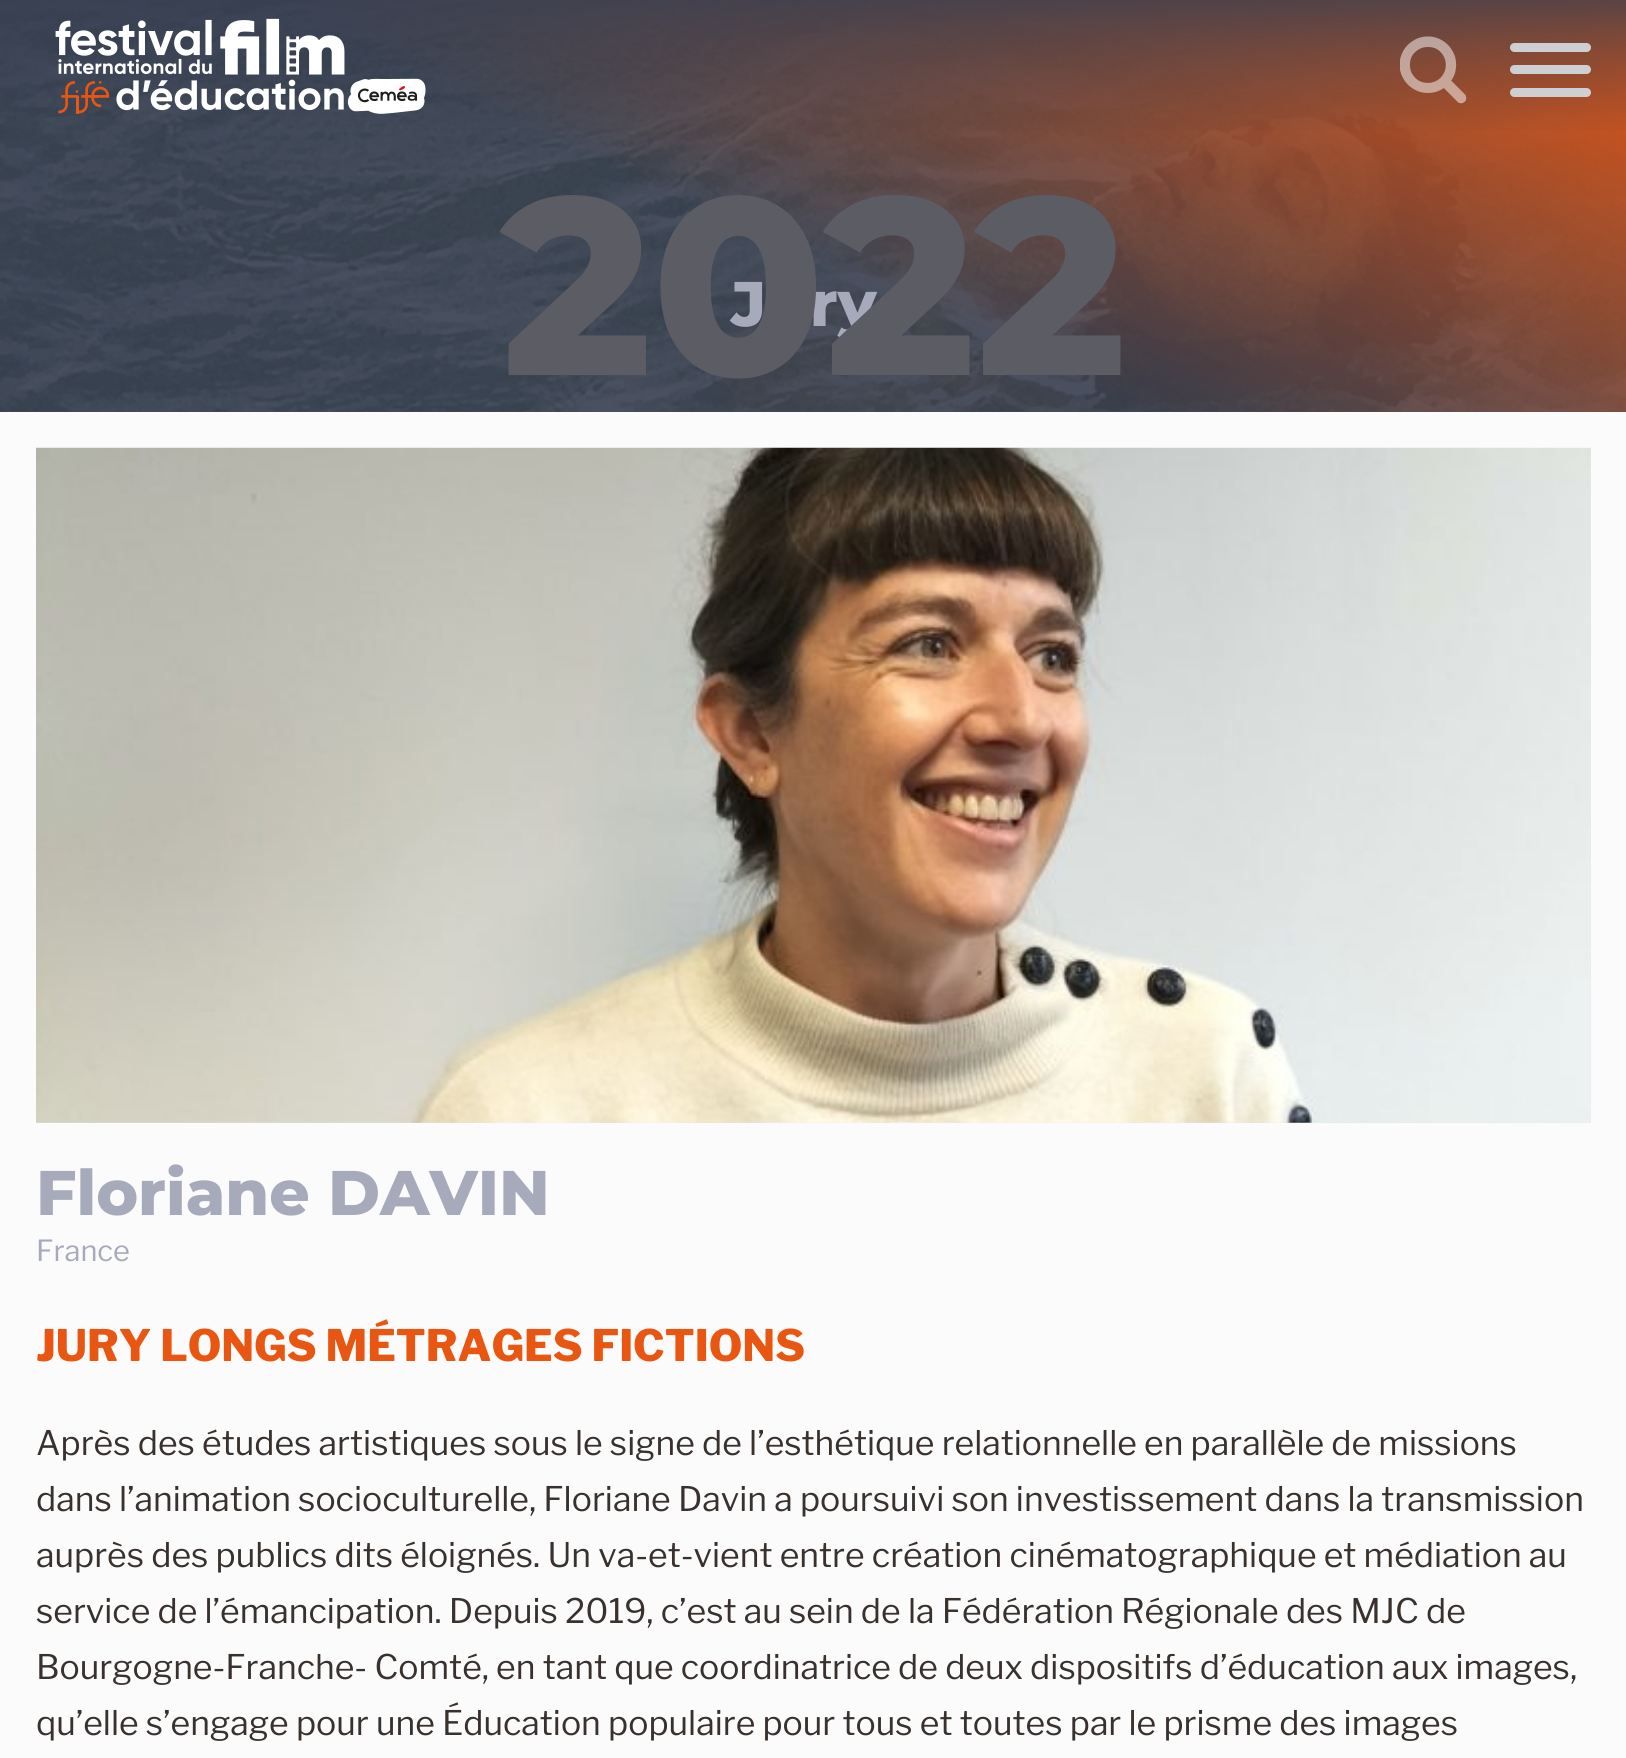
import math
import cairocffi as cairo

surface = cairo.ImageSurface(cairo.FORMAT_RGB24, 1626, 1758)
ctx = cairo.Context(surface)
options = cairo.FontOptions()
options.set_hint_metrics(cairo.HINT_METRICS_OFF)
options.set_hint_style(cairo.HINT_STYLE_NONE)
ctx.set_font_options(options)
ctx.set_miter_limit(4)


def rgb(r, g, b):
    ctx.set_source_rgb(r / 255, g / 255, b / 255)


def face(family, size, italic, bold):
    ctx.select_font_face(family, cairo.FONT_SLANT_ITALIC if italic else cairo.FONT_SLANT_NORMAL, cairo.FONT_WEIGHT_BOLD if bold else cairo.FONT_WEIGHT_NORMAL)
    ctx.set_font_size(size)


def label(x, y, s):
    ctx.move_to(x, y)
    ctx.show_text(s)


def rect(x, y, w, h):
    ctx.rectangle(x, y, w, h)
    ctx.fill()


def rrect(x, y, w, h, r):
    ctx.new_sub_path()
    for i, (u, v) in enumerate([(x + w - r, y + h - r), (x + r, y + h - r), (x + r, y + r), (x + w - r, y + r)]):
        ctx.arc(u, v, r, i * math.pi / 2, (i + 1) * math.pi / 2)
    ctx.close_path()


def image(path, x, y, w, h):
    ctx.save()
    ctx.set_source_surface(cairo.ImageSurface.create_from_png(path), x, y)
    ctx.rectangle(x, y, w, h)
    ctx.fill()
    ctx.restore()


rgb(251, 251, 251)
ctx.paint()
image('image2.png', 0, 0, 1626, 412)
gradient = cairo.LinearGradient(589, 687, 1038, -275)
gradient.add_color_stop_rgba(0.45, 0.216, 0.247, 0.318, 0.9)
gradient.add_color_stop_rgba(1, 0.91, 0.333, 0.067, 1)
ctx.set_source(gradient)
rect(0, 0, 1626, 412)
gradient = cairo.LinearGradient(813, 0, 813, 135)
gradient.add_color_stop_rgba(0, 0.216, 0.247, 0.318, 0.8)
gradient.add_color_stop_rgba(1, 0.216, 0.247, 0.318, 0)
ctx.set_source(gradient)
rect(0, 0, 1626, 131)
image('image0.png', 55, 18, 371, 96)
image('image1.png', 1400, 36, 67, 68)
rgb(205, 207, 211)
rrect(1510, 43, 81, 9, 4.5)
ctx.fill()
rrect(1510, 65, 81, 9, 4.5)
ctx.fill()
rrect(1510, 88, 81, 9, 4.5)
ctx.fill()
face('Montserrat ExtraBold', 63, 0, 0)
rgb(167, 170, 187)
label(731, 326, 'Jury')
face('Montserrat ExtraBold', 252, 0, 0)
rgb(92, 92, 101)
label(501, 375, '2022')
rgb(227, 230, 237)
rect(36, 448, 1555, 675)
image('image3.png', 36, 447, 1555, 676)
face('Montserrat ExtraBold', 63, 0, 0)
rgb(167, 170, 187)
label(36, 1215, 'Floriane DAVIN')
face('Libre Franklin', 29, 0, 0)
label(36, 1261, 'France')
face('Libre Franklin ExtraBold', 43.25, 0, 0)
rgb(232, 86, 17)
label(36, 1361, 'JURY LONGS MÉTRAGES FICTIONS')
face('Libre Franklin', 33.75, 0, 0)
rgb(56, 49, 46)
label(36, 1455, 'Après des études artistiques sous le signe de l’esthétique relationnelle en parallèle de missions')
label(36, 1511, 'dans l’animation socioculturelle, Floriane Davin a poursuivi son investissement dans la transmission')
label(36, 1567, 'auprès des publics dits éloignés. Un va-et-vient entre création cinématographique et médiation au')
label(36, 1623, 'service de l’émancipation. Depuis 2019, c’est au sein de la Fédération Régionale des MJC de')
label(36, 1679, 'Bourgogne-Franche- Comté, en tant que coordinatrice de deux dispositifs d’éducation aux images,')
label(36, 1735, 'qu’elle s’engage pour une Éducation populaire pour tous et toutes par le prisme des images')
surface.write_to_png('render.png')
